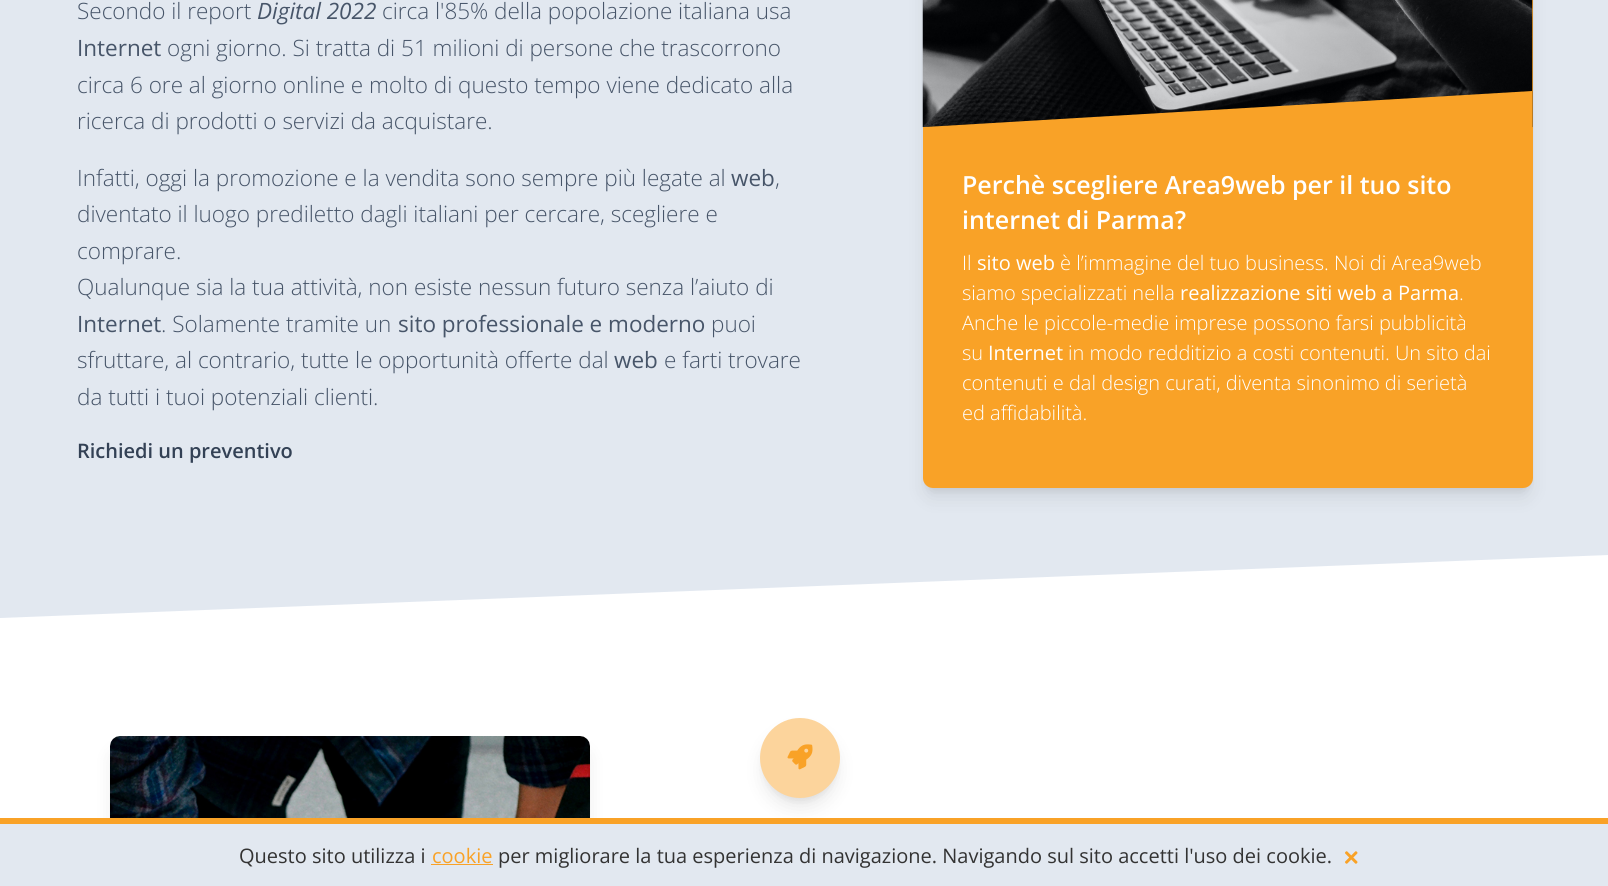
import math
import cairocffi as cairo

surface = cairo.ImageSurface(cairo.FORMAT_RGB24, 1608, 886)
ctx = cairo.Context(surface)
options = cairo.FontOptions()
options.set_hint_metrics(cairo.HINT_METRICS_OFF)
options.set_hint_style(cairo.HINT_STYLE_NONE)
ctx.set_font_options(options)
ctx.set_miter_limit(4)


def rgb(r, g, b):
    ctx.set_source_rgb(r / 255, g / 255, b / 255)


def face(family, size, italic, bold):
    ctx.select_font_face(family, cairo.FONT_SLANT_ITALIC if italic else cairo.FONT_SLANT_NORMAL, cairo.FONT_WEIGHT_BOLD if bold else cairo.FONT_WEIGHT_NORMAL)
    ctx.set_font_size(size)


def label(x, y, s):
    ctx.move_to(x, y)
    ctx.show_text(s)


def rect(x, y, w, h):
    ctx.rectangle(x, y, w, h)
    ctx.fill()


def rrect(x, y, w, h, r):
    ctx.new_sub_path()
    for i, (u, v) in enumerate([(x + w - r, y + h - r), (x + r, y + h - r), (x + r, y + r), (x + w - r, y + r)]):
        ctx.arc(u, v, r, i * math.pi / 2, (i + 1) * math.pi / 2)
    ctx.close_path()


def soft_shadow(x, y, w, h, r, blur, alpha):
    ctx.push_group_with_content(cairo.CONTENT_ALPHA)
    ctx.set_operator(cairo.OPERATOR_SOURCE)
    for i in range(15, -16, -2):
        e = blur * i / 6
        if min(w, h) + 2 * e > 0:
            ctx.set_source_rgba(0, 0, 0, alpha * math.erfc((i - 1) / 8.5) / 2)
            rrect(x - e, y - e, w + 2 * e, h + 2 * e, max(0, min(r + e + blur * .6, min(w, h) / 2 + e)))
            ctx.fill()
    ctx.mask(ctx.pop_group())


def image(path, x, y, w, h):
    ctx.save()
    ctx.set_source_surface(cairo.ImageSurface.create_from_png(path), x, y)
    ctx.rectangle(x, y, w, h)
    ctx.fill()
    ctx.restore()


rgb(255, 255, 255)
ctx.paint()
rgb(226, 232, 240)
rect(0, 0, 1608, 618)
face('Open Sans Light', 22.5, 0, 0)
rgb(71, 85, 105)
label(77, 19, 'Secondo il report')
face('Open Sans', 22.5, 1, 0)
label(257, 19, 'Digital 2022')
face('Open Sans Light', 22.5, 0, 0)
label(382, 19, 'circa l\'85% della popolazione italiana usa')
face('Open Sans', 22.5, 0, 0)
label(77, 56, 'Internet')
face('Open Sans Light', 22.5, 0, 0)
label(167, 56, 'ogni giorno. Si tratta di 51 milioni di persone che trascorrono')
label(77, 93, 'circa 6 ore al giorno online e molto di questo tempo viene dedicato alla')
label(77, 129, 'ricerca di prodotti o servizi da acquistare.')
label(77, 186, 'Infatti, oggi la promozione e la vendita sono sempre più legate al')
face('Open Sans', 22.5, 0, 0)
label(731, 186, 'web')
face('Open Sans Light', 22.5, 0, 0)
label(775, 186, ',')
label(77, 222, 'diventato il luogo prediletto dagli italiani per cercare, scegliere e')
label(77, 259, 'comprare.')
label(77, 295, 'Qualunque sia la tua attività, non esiste nessun futuro senza l’aiuto di')
face('Open Sans', 22.5, 0, 0)
label(77, 332, 'Internet')
face('Open Sans Light', 22.5, 0, 0)
label(161, 332, '. Solamente tramite un')
face('Open Sans', 22.5, 0, 0)
label(398, 332, 'sito professionale e moderno')
face('Open Sans Light', 22.5, 0, 0)
label(711, 332, 'puoi')
label(77, 368, 'sfruttare, al contrario, tutte le opportunità offerte dal')
face('Open Sans', 22.5, 0, 0)
label(614, 368, 'web')
face('Open Sans Light', 22.5, 0, 0)
label(664, 368, 'e farti trovare')
label(77, 405, 'da tutti i tuoi potenziali clienti.')
face('Open Sans SemiBold', 20, 0, 0)
rgb(51, 65, 85)
label(77, 458, 'Richiedi un preventivo')
rgb(0, 0, 0)
soft_shadow(928, -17, 600, 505, 5, 4, 0.1)
soft_shadow(926, -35, 603, 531, 6, 9.5, 0.1)
rgb(249, 162, 39)
rrect(923, -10, 610, 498, 10)
ctx.fill()
image('image0.png', 922, 0, 611, 128)
ctx.save()
ctx.rectangle(923, 10, 610, 119)
ctx.clip()
ctx.new_path()
ctx.move_to(891, 129)
ctx.line_to(1532, 129)
ctx.line_to(1532, 91)
ctx.close_path()
ctx.fill()
ctx.restore()
face('Open Sans SemiBold', 25, 0, 0)
rgb(255, 255, 255)
label(962, 194, 'Perchè scegliere Area9web per il tuo sito')
label(962, 229, 'internet di Parma?')
face('Open Sans Light', 20, 0, 0)
label(962, 270, 'Il')
face('Open Sans', 20, 0, 0)
label(977, 270, 'sito web')
face('Open Sans Light', 20, 0, 0)
label(1060, 270, 'è l’immagine del tuo business. Noi di Area9web')
label(962, 300, 'siamo specializzati nella')
face('Open Sans', 20, 0, 0)
label(1180, 300, 'realizzazione siti web a Parma')
face('Open Sans Light', 20, 0, 0)
label(1459, 300, '.')
label(962, 330, 'Anche le piccole-medie imprese possono farsi pubblicità')
label(962, 360, 'su')
face('Open Sans', 20, 0, 0)
label(988, 360, 'Internet')
face('Open Sans Light', 20, 0, 0)
label(1068, 360, 'in modo redditizio a costi contenuti. Un sito dai')
label(962, 390, 'contenuti e dal design curati, diventa sinonimo di serietà')
label(962, 420, 'ed affidabilità.')
ctx.new_path()
ctx.move_to(1608, 555)
ctx.line_to(1608, 618)
ctx.line_to(0, 618)
ctx.close_path()
ctx.fill()
rgb(0, 0, 0)
soft_shadow(114, 753, 472, 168, 6, 9.5, 0.1)
image('image1.png', 110, 736, 480, 82)
soft_shadow(765, 728, 70, 70, 35, 4, 0.1)
soft_shadow(764, 734, 72, 72, 36, 9.5, 0.1)
rgb(252, 212, 156)
ctx.arc(800, 758, 40, 0, 2 * math.pi)
ctx.fill()
image('image2.png', 787, 744, 26, 26)
rgb(226, 232, 240)
rect(0, 824, 1608, 62)
rgb(249, 162, 39)
rect(0, 818, 1608, 6)
face('Open Sans', 20, 0, 0)
rgb(51, 51, 51)
label(239, 863, 'Questo sito utilizza i')
rgb(249, 162, 39)
label(432, 863, 'cookie')
rect(431, 864, 62, 1)
rgb(51, 51, 51)
label(498, 863, 'per migliorare la tua esperienza di navigazione. Navigando sul sito accetti l\'uso dei cookie.')
image('image3.png', 1345, 851, 13, 13)
surface.write_to_png('render.png')
